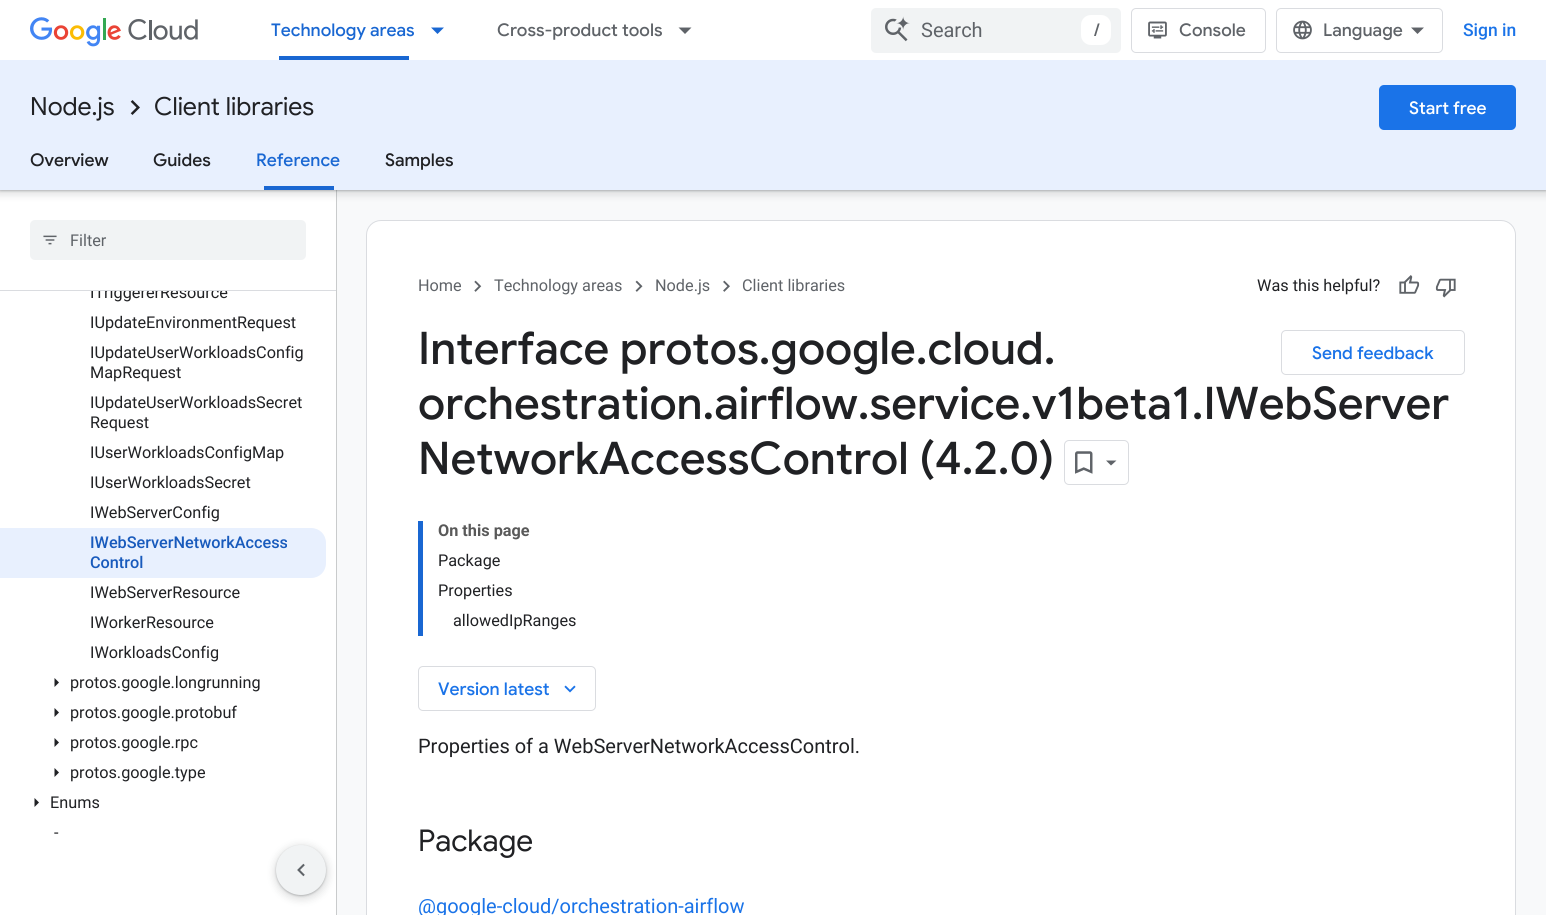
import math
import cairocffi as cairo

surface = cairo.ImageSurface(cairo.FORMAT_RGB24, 1546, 915)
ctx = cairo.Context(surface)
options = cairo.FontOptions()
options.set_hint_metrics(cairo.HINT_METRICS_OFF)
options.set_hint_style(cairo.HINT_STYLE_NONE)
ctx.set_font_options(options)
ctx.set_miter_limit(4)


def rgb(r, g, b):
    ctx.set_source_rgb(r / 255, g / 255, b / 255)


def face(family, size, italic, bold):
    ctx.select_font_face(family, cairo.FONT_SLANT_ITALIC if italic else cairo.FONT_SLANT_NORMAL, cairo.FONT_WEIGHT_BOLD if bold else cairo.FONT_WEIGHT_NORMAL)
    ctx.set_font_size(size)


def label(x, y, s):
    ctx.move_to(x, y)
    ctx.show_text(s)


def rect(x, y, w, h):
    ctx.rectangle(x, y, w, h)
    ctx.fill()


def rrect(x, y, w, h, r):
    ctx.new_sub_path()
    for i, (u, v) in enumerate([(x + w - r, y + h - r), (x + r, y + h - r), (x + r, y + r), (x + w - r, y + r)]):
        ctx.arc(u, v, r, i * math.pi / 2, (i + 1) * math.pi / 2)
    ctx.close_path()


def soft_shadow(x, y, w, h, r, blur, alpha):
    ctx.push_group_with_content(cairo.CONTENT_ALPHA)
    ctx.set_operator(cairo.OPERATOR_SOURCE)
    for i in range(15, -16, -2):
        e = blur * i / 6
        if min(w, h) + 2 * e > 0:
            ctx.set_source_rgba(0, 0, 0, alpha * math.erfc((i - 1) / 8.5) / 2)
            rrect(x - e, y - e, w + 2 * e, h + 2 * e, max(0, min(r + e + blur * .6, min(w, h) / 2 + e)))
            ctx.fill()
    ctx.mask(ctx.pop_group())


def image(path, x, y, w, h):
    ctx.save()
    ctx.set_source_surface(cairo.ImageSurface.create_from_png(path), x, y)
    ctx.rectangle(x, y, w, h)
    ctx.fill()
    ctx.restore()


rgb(248, 249, 250)
ctx.paint()
rgb(60, 64, 67)
soft_shadow(0, 1, 336, 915, 0, 0.5, 1)
rgb(255, 255, 255)
rect(0, 291, 336, 624)
face('Roboto', 16.25, 0, 0)
rgb(32, 33, 36)
label(90, 298, 'ITriggererResource')
rgb(255, 255, 255)
rect(0, 190, 336, 100)
rgb(60, 64, 67)
soft_shadow(-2, 60, 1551, 135, 0, 4, 0.15)
soft_shadow(0, 61, 1546, 130, 0, 1, 0.3)
rgb(255, 255, 255)
rect(0, 0, 1546, 60)
image('image0.png', 30, 17, 168, 30)
face('Google Sans Medium', 17.5, 0, 0)
rgb(25, 103, 210)
label(271, 36, 'Technology areas')
rect(279, 56, 130, 4)
ctx.new_path()
ctx.move_to(431, 27.5)
ctx.line_to(444, 27.5)
ctx.line_to(437.5, 34)
ctx.close_path()
ctx.fill()
rgb(95, 99, 104)
label(497, 36, 'Cross-product tools')
ctx.new_path()
ctx.move_to(678.5, 27.5)
ctx.line_to(691.5, 27.5)
ctx.line_to(685, 34)
ctx.close_path()
ctx.fill()
rgb(241, 243, 244)
rrect(871, 8, 250, 45, 5)
ctx.fill()
image('image1.png', 885, 16, 25, 26)
face('Roboto', 20, 0, 0)
rgb(95, 99, 104)
label(921, 37, 'Search')
rgb(255, 255, 255)
rrect(1081, 15, 30, 30, 10)
ctx.fill()
face('Google Sans Medium', 17.5, 0, 0)
rgb(95, 99, 104)
label(1094, 36, '/')
rrect(1131.5, 8.5, 134, 44, 4.5)
rgb(218, 220, 224)
ctx.set_line_width(1)
ctx.stroke()
image('image2.png', 1148, 21, 19, 18)
rgb(95, 99, 104)
label(1179, 36, 'Console')
rrect(1276.5, 8.5, 166, 44, 4.5)
rgb(218, 220, 224)
ctx.stroke()
image('image3.png', 1293, 20, 19, 20)
rgb(95, 99, 104)
label(1323, 36, 'Language')
ctx.new_path()
ctx.move_to(1417.5, 34)
ctx.line_to(1411, 27.5)
ctx.line_to(1424, 27.5)
ctx.close_path()
ctx.fill()
face('Roboto Medium', 17.5, 0, 0)
rgb(26, 115, 232)
label(1463, 36, 'Sign in')
rgb(232, 240, 254)
rect(0, 60, 1546, 130)
face('Google Sans', 25, 0, 0)
rgb(32, 33, 36)
label(30, 115, 'Node.js')
image('image4.png', 130, 100, 10, 15)
label(154, 115, 'Client libraries')
rgb(26, 115, 232)
rrect(1379, 85, 137, 45, 5)
ctx.fill()
face('Google Sans Medium', 17.5, 0, 0)
rgb(255, 255, 255)
label(1409, 114, 'Start free')
rgb(32, 33, 36)
label(30, 166, 'Overview')
label(153, 166, 'Guides')
rgb(25, 103, 210)
label(256, 166, 'Reference')
rect(264, 186, 70, 4)
rgb(32, 33, 36)
label(385, 166, 'Samples')
rgb(218, 220, 224)
rect(0, 290, 336, 1)
rgb(241, 243, 244)
rrect(30, 220, 276, 40, 5)
ctx.fill()
image('image5.png', 43, 235, 14, 10)
face('Roboto', 16.25, 0, 0)
rgb(95, 99, 104)
label(70, 246, 'Filter')
rgb(32, 33, 36)
label(90, 328, 'IUpdateEnvironmentRequest')
label(90, 358, 'IUpdateUserWorkloadsConfig')
label(90, 378, 'MapRequest')
label(90, 408, 'IUpdateUserWorkloadsSecret')
label(90, 428, 'Request')
label(90, 458, 'IUserWorkloadsConfigMap')
label(90, 488, 'IUserWorkloadsSecret')
label(90, 518, 'IWebServerConfig')
rgb(232, 240, 254)
ctx.new_path()
ctx.move_to(0, 528)
ctx.line_to(311, 528)
ctx.curve_to(319.5, 528, 326, 534.5, 326, 543)
ctx.line_to(326, 563)
ctx.curve_to(326, 571.5, 319.5, 578, 311, 578)
ctx.line_to(0, 578)
ctx.close_path()
ctx.fill()
face('Roboto Medium', 16.25, 0, 0)
rgb(24, 90, 188)
label(90, 548, 'IWebServerNetworkAccess')
label(90, 568, 'Control')
face('Roboto', 16.25, 0, 0)
rgb(32, 33, 36)
label(90, 598, 'IWebServerResource')
label(90, 628, 'IWorkerResource')
label(90, 658, 'IWorkloadsConfig')
ctx.new_path()
ctx.move_to(54.5, 687)
ctx.line_to(54.5, 678)
ctx.line_to(59, 682.5)
ctx.close_path()
ctx.fill()
label(70, 688, 'protos.google.longrunning')
ctx.new_path()
ctx.move_to(54.5, 717)
ctx.line_to(54.5, 708)
ctx.line_to(59, 712.5)
ctx.close_path()
ctx.fill()
label(70, 718, 'protos.google.protobuf')
ctx.new_path()
ctx.move_to(54.5, 747)
ctx.line_to(54.5, 738)
ctx.line_to(59, 742.5)
ctx.close_path()
ctx.fill()
label(70, 748, 'protos.google.rpc')
ctx.new_path()
ctx.move_to(54.5, 777)
ctx.line_to(54.5, 768)
ctx.line_to(59, 772.5)
ctx.close_path()
ctx.fill()
label(70, 778, 'protos.google.type')
ctx.new_path()
ctx.move_to(34.5, 807)
ctx.line_to(34.5, 798)
ctx.line_to(39, 802.5)
ctx.close_path()
ctx.fill()
label(50, 808, 'Enums')
label(54, 838, '-')
rgb(255, 255, 255)
rrect(366.5, 220.5, 1149, 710, 14.5)
ctx.fill_preserve()
rgb(218, 220, 224)
ctx.stroke()
rgb(95, 99, 104)
label(418, 291, 'Home')
image('image6.png', 474, 280, 8, 12)
label(494, 291, 'Technology areas')
image('image7.png', 635, 280, 8, 12)
label(655, 291, 'Node.js')
image('image8.png', 723, 280, 7, 12)
label(742, 291, 'Client libraries')
rgb(32, 33, 36)
label(1257, 291, 'Was this helpful?')
image('image9.png', 1399, 275, 21, 19)
image('image10.png', 1435, 278, 21, 20)
face('Google Sans Medium', 45, 0, 0)
label(418, 364, 'Interface protos.google.cloud.')
label(418, 419, 'orchestration.airflow.service.v1beta1.IWebServer')
label(418, 474, 'NetworkAccessControl (4.2.0)')
rrect(1064.5, 440.5, 64, 44, 4.5)
rgb(218, 220, 224)
ctx.stroke()
image('image11.png', 1075, 451, 18, 23)
rgb(95, 99, 104)
ctx.new_path()
ctx.move_to(1106, 460.5)
ctx.line_to(1116.5, 460.5)
ctx.line_to(1111, 465.5)
ctx.close_path()
ctx.fill()
rrect(1281.5, 330.5, 183, 44, 4.5)
rgb(218, 220, 224)
ctx.stroke()
face('Google Sans Medium', 17.5, 0, 0)
rgb(26, 115, 232)
label(1312, 359, 'Send feedback')
rgb(25, 103, 210)
rect(418, 521, 5, 115)
face('Roboto', 16.25, 0, 1)
rgb(89, 89, 89)
label(438, 536, 'On this page')
face('Roboto', 16.25, 0, 0)
rgb(32, 33, 36)
label(438, 566, 'Package')
label(438, 596, 'Properties')
label(453, 626, 'allowedIpRanges')
rrect(418.5, 666.5, 177, 44, 4.5)
rgb(218, 220, 224)
ctx.stroke()
face('Google Sans Medium', 17.5, 0, 0)
rgb(26, 115, 232)
label(438, 695, 'Version latest')
image('image12.png', 564, 685, 12, 8)
face('Roboto', 20, 0, 0)
rgb(32, 33, 36)
label(418, 753, 'Properties of a WebServerNetworkAccessControl.')
face('Google Sans', 30, 0, 0)
label(418, 851, 'Package')
face('Roboto', 20, 0, 0)
rgb(26, 115, 232)
label(418, 913, '@google-cloud/orchestration-airflow')
rgb(60, 64, 67)
soft_shadow(274, 845, 55, 55, 27.5, 4, 0.15)
soft_shadow(276, 846, 50, 50, 25, 1, 0.3)
rgb(241, 243, 244)
ctx.arc(301, 870, 25, 0, 2 * math.pi)
ctx.fill()
image('image13.png', 297, 863, 8, 14)
surface.write_to_png('render.png')
